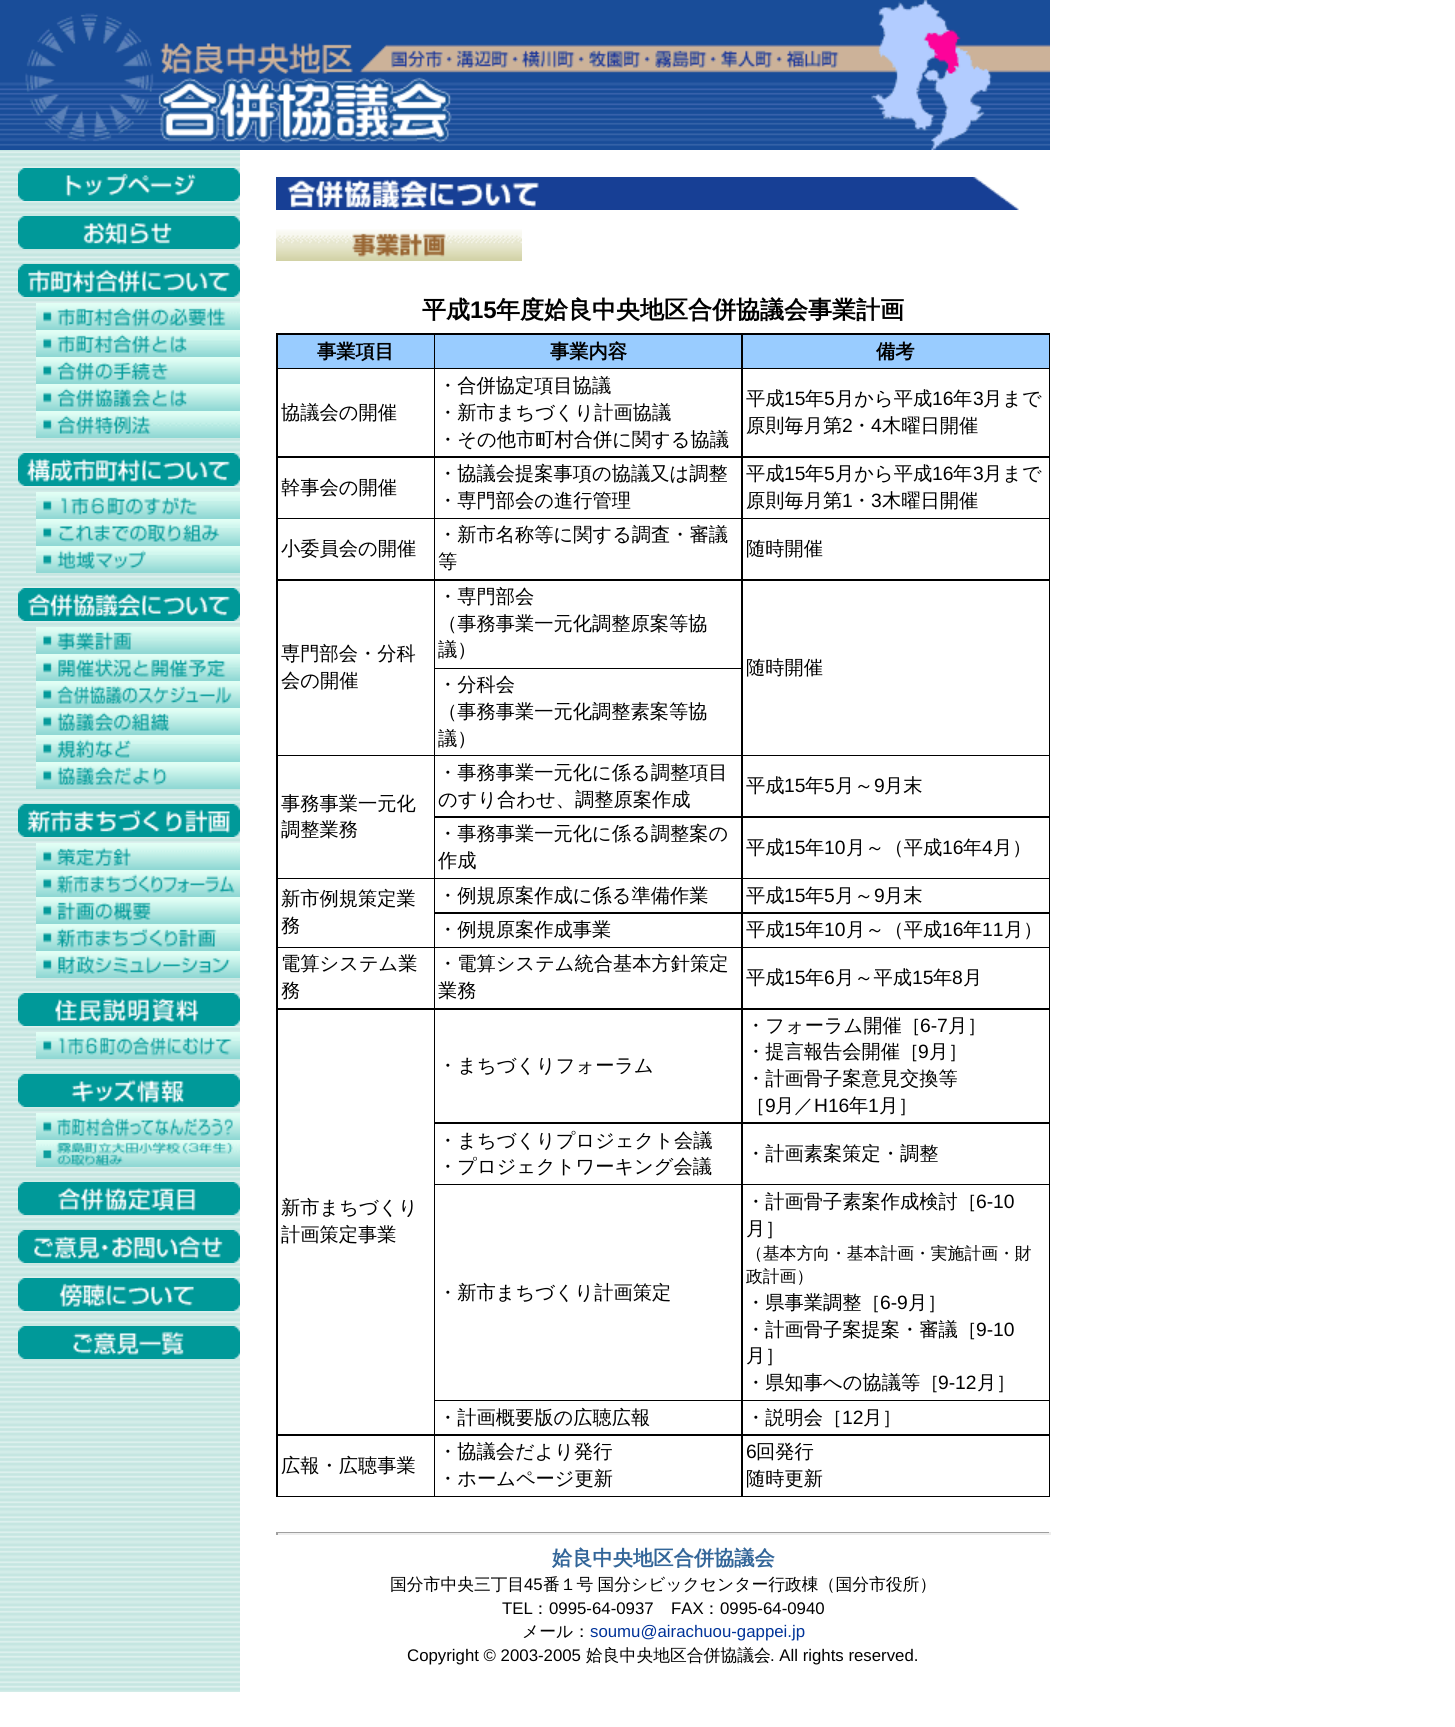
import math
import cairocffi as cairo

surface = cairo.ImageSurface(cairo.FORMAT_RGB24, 1455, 1727)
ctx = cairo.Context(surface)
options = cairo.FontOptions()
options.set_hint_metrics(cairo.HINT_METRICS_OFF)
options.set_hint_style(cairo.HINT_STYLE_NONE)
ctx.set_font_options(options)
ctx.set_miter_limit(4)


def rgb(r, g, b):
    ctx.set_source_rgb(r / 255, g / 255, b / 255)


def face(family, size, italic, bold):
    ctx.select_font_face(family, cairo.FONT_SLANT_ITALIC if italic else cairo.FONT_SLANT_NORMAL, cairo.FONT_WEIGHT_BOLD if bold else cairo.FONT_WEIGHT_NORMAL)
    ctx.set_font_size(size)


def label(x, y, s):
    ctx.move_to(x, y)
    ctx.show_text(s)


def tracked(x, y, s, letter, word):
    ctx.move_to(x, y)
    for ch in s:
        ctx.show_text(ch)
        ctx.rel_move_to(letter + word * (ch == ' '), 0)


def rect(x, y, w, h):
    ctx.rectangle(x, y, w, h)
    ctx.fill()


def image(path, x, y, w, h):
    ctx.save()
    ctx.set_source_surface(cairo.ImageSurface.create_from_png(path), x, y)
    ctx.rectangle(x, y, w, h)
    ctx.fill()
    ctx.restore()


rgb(255, 255, 255)
ctx.paint()
image('image0.png', 0, 0, 1050, 150)
image('image1.png', 0, 150, 240, 1542)
image('image2.png', 18, 168, 222, 33)
image('image3.png', 18, 216, 222, 33)
image('image4.png', 18, 264, 222, 33)
image('image5.png', 36, 303, 204, 27)
image('image6.png', 36, 330, 204, 27)
image('image7.png', 36, 357, 204, 27)
image('image8.png', 36, 384, 204, 27)
image('image9.png', 36, 411, 204, 27)
image('image10.png', 18, 453, 222, 33)
image('image11.png', 36, 492, 204, 27)
image('image12.png', 36, 519, 204, 27)
image('image13.png', 36, 546, 204, 27)
image('image14.png', 18, 588, 222, 33)
image('image15.png', 36, 627, 204, 27)
image('image16.png', 36, 654, 204, 27)
image('image17.png', 36, 681, 204, 27)
image('image18.png', 36, 708, 204, 27)
image('image19.png', 36, 735, 204, 27)
image('image20.png', 36, 762, 204, 27)
image('image21.png', 18, 804, 222, 33)
image('image22.png', 36, 843, 204, 27)
image('image23.png', 36, 870, 204, 27)
image('image24.png', 36, 897, 204, 27)
image('image25.png', 36, 924, 204, 27)
image('image26.png', 36, 951, 204, 27)
image('image27.png', 18, 993, 222, 33)
image('image28.png', 36, 1032, 204, 27)
image('image29.png', 18, 1074, 222, 33)
image('image30.png', 36, 1113, 204, 27)
image('image31.png', 36, 1140, 204, 27)
image('image32.png', 18, 1182, 222, 33)
image('image33.png', 18, 1230, 222, 33)
image('image34.png', 18, 1278, 222, 33)
image('image35.png', 18, 1326, 222, 33)
image('image36.png', 276, 177, 743, 33)
image('image37.png', 276, 229, 246, 32)
face('WenQuanYi Zen Hei', 24, 0, 1)
rgb(0, 0, 0)
label(422, 318, '平成')
face('Liberation Sans', 24, 0, 1)
label(470, 318, '15')
face('WenQuanYi Zen Hei', 24, 0, 1)
label(496, 318, '年度姶良中央地区合併協議会事業計画')
rect(276, 333, 774, 1164)
rgb(153, 204, 255)
rect(278, 335, 156, 33)
face('WenQuanYi Zen Hei', 19.25, 0, 1)
rgb(0, 0, 0)
label(317, 358, '事業項目')
rgb(153, 204, 255)
rect(435, 335, 306, 33)
rgb(0, 0, 0)
label(550, 358, '事業内容')
rgb(153, 204, 255)
rect(743, 335, 306, 33)
rgb(0, 0, 0)
label(876, 358, '備考')
rgb(255, 255, 255)
rect(278, 369, 156, 87)
face('WenQuanYi Zen Hei Medium', 19.25, 0, 0)
rgb(0, 0, 0)
label(281, 419, '協議会の開催')
rgb(255, 255, 255)
rect(435, 369, 306, 87)
rgb(0, 0, 0)
label(438, 392, '・合併協定項目協議')
label(438, 419, '・新市まちづくり計画協議')
label(438, 446, '・その他市町村合併に関する協議')
rgb(255, 255, 255)
rect(743, 369, 306, 87)
rgb(0, 0, 0)
label(746, 405, '平成')
face('Liberation Sans', 19.25, 0, 0)
label(784, 405, '15')
face('WenQuanYi Zen Hei Medium', 19.25, 0, 0)
label(805, 405, '年')
face('Liberation Sans', 19.25, 0, 0)
label(824, 405, '5')
face('WenQuanYi Zen Hei Medium', 19.25, 0, 0)
label(835, 405, '月から平成')
face('Liberation Sans', 19.25, 0, 0)
label(932, 405, '16')
face('WenQuanYi Zen Hei Medium', 19.25, 0, 0)
label(953, 405, '年')
face('Liberation Sans', 19.25, 0, 0)
label(973, 405, '3')
face('WenQuanYi Zen Hei Medium', 19.25, 0, 0)
label(983, 405, '月まで')
label(746, 432, '原則毎月第')
face('Liberation Sans', 19.25, 0, 0)
label(842, 432, '2')
face('WenQuanYi Zen Hei Medium', 19.25, 0, 0)
label(852, 432, '・')
face('Liberation Sans', 19.25, 0, 0)
label(871, 432, '4')
face('WenQuanYi Zen Hei Medium', 19.25, 0, 0)
label(882, 432, '木曜日開催')
rgb(255, 255, 255)
rect(278, 458, 156, 60)
rgb(0, 0, 0)
label(281, 494, '幹事会の開催')
rgb(255, 255, 255)
rect(435, 458, 306, 60)
rgb(0, 0, 0)
label(438, 480, '・協議会提案事項の協議又は調整')
label(438, 507, '・専門部会の進行管理')
rgb(255, 255, 255)
rect(743, 458, 306, 60)
rgb(0, 0, 0)
label(746, 480, '平成')
face('Liberation Sans', 19.25, 0, 0)
label(784, 480, '15')
face('WenQuanYi Zen Hei Medium', 19.25, 0, 0)
label(805, 480, '年')
face('Liberation Sans', 19.25, 0, 0)
label(824, 480, '5')
face('WenQuanYi Zen Hei Medium', 19.25, 0, 0)
label(835, 480, '月から平成')
face('Liberation Sans', 19.25, 0, 0)
label(932, 480, '16')
face('WenQuanYi Zen Hei Medium', 19.25, 0, 0)
label(953, 480, '年')
face('Liberation Sans', 19.25, 0, 0)
label(973, 480, '3')
face('WenQuanYi Zen Hei Medium', 19.25, 0, 0)
label(983, 480, '月まで')
label(746, 507, '原則毎月第')
face('Liberation Sans', 19.25, 0, 0)
label(842, 507, '1')
face('WenQuanYi Zen Hei Medium', 19.25, 0, 0)
label(852, 507, '・')
face('Liberation Sans', 19.25, 0, 0)
label(871, 507, '3')
face('WenQuanYi Zen Hei Medium', 19.25, 0, 0)
label(882, 507, '木曜日開催')
rgb(255, 255, 255)
rect(278, 519, 156, 60)
rgb(0, 0, 0)
label(281, 555, '小委員会の開催')
rgb(255, 255, 255)
rect(435, 519, 306, 60)
rgb(0, 0, 0)
label(438, 541, '・新市名称等に関する調査・審議')
label(438, 568, '等')
rgb(255, 255, 255)
rect(743, 519, 306, 60)
rgb(0, 0, 0)
label(746, 555, '随時開催')
rgb(255, 255, 255)
rect(435, 581, 306, 87)
rgb(0, 0, 0)
label(438, 603, '・専門部会')
label(438, 630, '（事務事業一元化調整原案等協')
label(438, 656, '議）')
rgb(255, 255, 255)
rect(278, 581, 156, 174)
rgb(0, 0, 0)
label(281, 660, '専門部会・分科')
label(281, 687, '会の開催')
rgb(255, 255, 255)
rect(743, 581, 306, 174)
rgb(0, 0, 0)
label(746, 674, '随時開催')
rgb(255, 255, 255)
rect(435, 669, 306, 86)
rgb(0, 0, 0)
label(438, 691, '・分科会')
label(438, 718, '（事務事業一元化調整素案等協')
label(438, 745, '議）')
rgb(255, 255, 255)
rect(435, 756, 306, 60)
rgb(0, 0, 0)
label(438, 779, '・事務事業一元化に係る調整項目')
label(438, 806, 'のすり合わせ、調整原案作成')
rgb(255, 255, 255)
rect(743, 756, 306, 60)
rgb(0, 0, 0)
label(746, 792, '平成')
face('Liberation Sans', 19.25, 0, 0)
label(784, 792, '15')
face('WenQuanYi Zen Hei Medium', 19.25, 0, 0)
label(805, 792, '年')
face('Liberation Sans', 19.25, 0, 0)
label(824, 792, '5')
face('WenQuanYi Zen Hei Medium', 19.25, 0, 0)
label(835, 792, '月～')
face('Liberation Sans', 19.25, 0, 0)
label(874, 792, '9')
face('WenQuanYi Zen Hei Medium', 19.25, 0, 0)
label(884, 792, '月末')
rgb(255, 255, 255)
rect(278, 756, 156, 122)
rgb(0, 0, 0)
label(281, 810, '事務事業一元化')
label(281, 836, '調整業務')
rgb(255, 255, 255)
rect(435, 818, 306, 60)
rgb(0, 0, 0)
label(438, 840, '・事務事業一元化に係る調整案の')
label(438, 867, '作成')
rgb(255, 255, 255)
rect(743, 818, 306, 60)
rgb(0, 0, 0)
label(746, 854, '平成')
face('Liberation Sans', 19.25, 0, 0)
label(784, 854, '15')
face('WenQuanYi Zen Hei Medium', 19.25, 0, 0)
label(805, 854, '年')
face('Liberation Sans', 19.25, 0, 0)
label(824, 854, '10')
face('WenQuanYi Zen Hei Medium', 19.25, 0, 0)
label(846, 854, '月～（平成')
face('Liberation Sans', 19.25, 0, 0)
label(942, 854, '16')
face('WenQuanYi Zen Hei Medium', 19.25, 0, 0)
label(963, 854, '年')
face('Liberation Sans', 19.25, 0, 0)
label(982, 854, '4')
face('WenQuanYi Zen Hei Medium', 19.25, 0, 0)
label(993, 854, '月）')
rgb(255, 255, 255)
rect(278, 879, 156, 68)
rgb(0, 0, 0)
label(281, 905, '新市例規策定業')
label(281, 932, '務')
rgb(255, 255, 255)
rect(435, 879, 306, 33)
rgb(0, 0, 0)
label(438, 902, '・例規原案作成に係る準備作業')
rgb(255, 255, 255)
rect(743, 879, 306, 33)
rgb(0, 0, 0)
label(746, 902, '平成')
face('Liberation Sans', 19.25, 0, 0)
label(784, 902, '15')
face('WenQuanYi Zen Hei Medium', 19.25, 0, 0)
label(805, 902, '年')
face('Liberation Sans', 19.25, 0, 0)
label(824, 902, '5')
face('WenQuanYi Zen Hei Medium', 19.25, 0, 0)
label(835, 902, '月～')
face('Liberation Sans', 19.25, 0, 0)
label(874, 902, '9')
face('WenQuanYi Zen Hei Medium', 19.25, 0, 0)
label(884, 902, '月末')
rgb(255, 255, 255)
rect(435, 914, 306, 33)
rgb(0, 0, 0)
label(438, 936, '・例規原案作成事業')
rgb(255, 255, 255)
rect(743, 914, 306, 33)
rgb(0, 0, 0)
label(746, 936, '平成')
face('Liberation Sans', 19.25, 0, 0)
label(784, 936, '15')
face('WenQuanYi Zen Hei Medium', 19.25, 0, 0)
label(805, 936, '年')
face('Liberation Sans', 19.25, 0, 0)
label(824, 936, '10')
face('WenQuanYi Zen Hei Medium', 19.25, 0, 0)
label(846, 936, '月～（平成')
face('Liberation Sans', 19.25, 0, 0)
label(942, 936, '16')
face('WenQuanYi Zen Hei Medium', 19.25, 0, 0)
label(963, 936, '年')
face('Liberation Sans', 19.25, 0, 0)
label(982, 936, '11')
face('WenQuanYi Zen Hei Medium', 19.25, 0, 0)
label(1004, 936, '月）')
rgb(255, 255, 255)
rect(278, 948, 156, 60)
rgb(0, 0, 0)
label(281, 970, '電算システム業')
label(281, 997, '務')
rgb(255, 255, 255)
rect(435, 948, 306, 60)
rgb(0, 0, 0)
label(438, 970, '・電算システム統合基本方針策定')
label(438, 997, '業務')
rgb(255, 255, 255)
rect(743, 948, 306, 60)
rgb(0, 0, 0)
label(746, 984, '平成')
face('Liberation Sans', 19.25, 0, 0)
label(784, 984, '15')
face('WenQuanYi Zen Hei Medium', 19.25, 0, 0)
label(805, 984, '年')
face('Liberation Sans', 19.25, 0, 0)
label(824, 984, '6')
face('WenQuanYi Zen Hei Medium', 19.25, 0, 0)
label(835, 984, '月～平成')
face('Liberation Sans', 19.25, 0, 0)
label(912, 984, '15')
face('WenQuanYi Zen Hei Medium', 19.25, 0, 0)
label(933, 984, '年')
face('Liberation Sans', 19.25, 0, 0)
label(952, 984, '8')
face('WenQuanYi Zen Hei Medium', 19.25, 0, 0)
label(963, 984, '月')
rgb(255, 255, 255)
rect(435, 1010, 306, 112)
rgb(0, 0, 0)
label(438, 1072, '・まちづくりフォーラム')
rgb(255, 255, 255)
rect(743, 1010, 306, 112)
rgb(0, 0, 0)
label(746, 1032, '・フォーラム開催［')
face('Liberation Sans', 19.25, 0, 0)
label(920, 1032, '6-7')
face('WenQuanYi Zen Hei Medium', 19.25, 0, 0)
label(948, 1032, '月］')
label(746, 1058, '・提言報告会開催［')
face('Liberation Sans', 19.25, 0, 0)
label(918, 1058, '9')
face('WenQuanYi Zen Hei Medium', 19.25, 0, 0)
label(929, 1058, '月］')
label(746, 1085, '・計画骨子案意見交換等')
label(746, 1112, '［')
face('Liberation Sans', 19.25, 0, 0)
label(765, 1112, '9')
face('WenQuanYi Zen Hei Medium', 19.25, 0, 0)
label(775, 1112, '月／')
face('Liberation Sans', 19.25, 0, 0)
label(814, 1112, 'H16')
face('WenQuanYi Zen Hei Medium', 19.25, 0, 0)
label(849, 1112, '年')
face('Liberation Sans', 19.25, 0, 0)
label(868, 1112, '1')
face('WenQuanYi Zen Hei Medium', 19.25, 0, 0)
label(879, 1112, '月］')
rgb(255, 255, 255)
rect(278, 1010, 156, 424)
rgb(0, 0, 0)
label(281, 1214, '新市まちづくり')
label(281, 1241, '計画策定事業')
rgb(255, 255, 255)
rect(435, 1124, 306, 60)
rgb(0, 0, 0)
label(438, 1147, '・まちづくりプロジェクト会議')
label(438, 1173, '・プロジェクトワーキング会議')
rgb(255, 255, 255)
rect(743, 1124, 306, 60)
rgb(0, 0, 0)
label(746, 1160, '・計画素案策定・調整')
rgb(255, 255, 255)
rect(435, 1185, 306, 215)
rgb(0, 0, 0)
label(438, 1299, '・新市まちづくり計画策定')
rgb(255, 255, 255)
rect(743, 1185, 306, 215)
rgb(0, 0, 0)
label(746, 1208, '・計画骨子素案作成検討［')
face('Liberation Sans', 19.25, 0, 0)
label(976, 1208, '6-10')
face('WenQuanYi Zen Hei Medium', 19.25, 0, 0)
label(746, 1235, '月］')
face('WenQuanYi Zen Hei Medium', 16.8, 0, 0)
label(746, 1259, '（基本方向・基本計画・実施計画・財')
label(746, 1282, '政計画）')
face('WenQuanYi Zen Hei Medium', 19.25, 0, 0)
label(746, 1309, '・県事業調整［')
face('Liberation Sans', 19.25, 0, 0)
label(880, 1309, '6-9')
face('WenQuanYi Zen Hei Medium', 19.25, 0, 0)
label(908, 1309, '月］')
label(746, 1336, '・計画骨子案提案・審議［')
face('Liberation Sans', 19.25, 0, 0)
label(976, 1336, '9-10')
face('WenQuanYi Zen Hei Medium', 19.25, 0, 0)
label(746, 1362, '月］')
label(746, 1389, '・県知事への協議等［')
face('Liberation Sans', 19.25, 0, 0)
label(938, 1389, '9-12')
face('WenQuanYi Zen Hei Medium', 19.25, 0, 0)
label(977, 1389, '月］')
rgb(255, 255, 255)
rect(435, 1401, 306, 33)
rgb(0, 0, 0)
label(438, 1424, '・計画概要版の広聴広報')
rgb(255, 255, 255)
rect(743, 1401, 306, 33)
rgb(0, 0, 0)
label(746, 1424, '・説明会［')
face('Liberation Sans', 19.25, 0, 0)
label(842, 1424, '12')
face('WenQuanYi Zen Hei Medium', 19.25, 0, 0)
label(863, 1424, '月］')
rgb(255, 255, 255)
rect(278, 1436, 156, 60)
rgb(0, 0, 0)
label(281, 1472, '広報・広聴事業')
rgb(255, 255, 255)
rect(435, 1436, 306, 60)
rgb(0, 0, 0)
label(438, 1458, '・協議会だより発行')
label(438, 1485, '・ホームページ更新')
rgb(255, 255, 255)
rect(743, 1436, 306, 60)
face('Liberation Sans', 19.25, 0, 0)
rgb(0, 0, 0)
label(746, 1458, '6')
face('WenQuanYi Zen Hei Medium', 19.25, 0, 0)
label(756, 1458, '回発行')
label(746, 1485, '随時更新')
rgb(159, 159, 159)
rect(276, 1532, 774, 1)
rgb(238, 238, 238)
rect(1049, 1532, 2, 3)
rect(276, 1533, 774, 2)
rgb(159, 159, 159)
rect(276, 1532, 2, 3)
face('WenQuanYi Zen Hei', 20.25, 0, 1)
rgb(51, 102, 153)
label(552, 1565, '姶良中央地区合併協議会')
face('WenQuanYi Zen Hei Medium', 16.8, 0, 0)
rgb(0, 0, 0)
label(390, 1590, '国分市中央三丁目')
face('Liberation Sans', 16.8, 0, 0)
label(524, 1590, '45')
face('WenQuanYi Zen Hei Medium', 16.8, 0, 0)
tracked(543, 1590, '番１号 国分シビックセンター行政棟（国分市役所）', 0, -1)
face('Liberation Sans', 16.8, 0, 0)
label(502, 1614, 'TEL')
face('WenQuanYi Zen Hei Medium', 16.8, 0, 0)
label(532, 1614, '：')
face('Liberation Sans', 16.8, 0, 0)
label(549, 1614, '0995-64-0937')
label(671, 1614, 'FAX')
face('WenQuanYi Zen Hei Medium', 16.8, 0, 0)
label(703, 1614, '：')
face('Liberation Sans', 16.8, 0, 0)
label(720, 1614, '0995-64-0940')
face('WenQuanYi Zen Hei Medium', 16.8, 0, 0)
label(522, 1637, 'メール：')
face('Liberation Sans', 16.8, 0, 0)
rgb(0, 51, 153)
label(590, 1637, 'soumu@airachuou-gappei.jp')
rgb(0, 0, 0)
label(407, 1661, 'Copyright © 2003-2005')
face('WenQuanYi Zen Hei Medium', 16.8, 0, 0)
label(586, 1661, '姶良中央地区合併協議会')
face('Liberation Sans', 16.8, 0, 0)
label(770, 1661, '. All rights reserved.')
surface.write_to_png('render.png')
